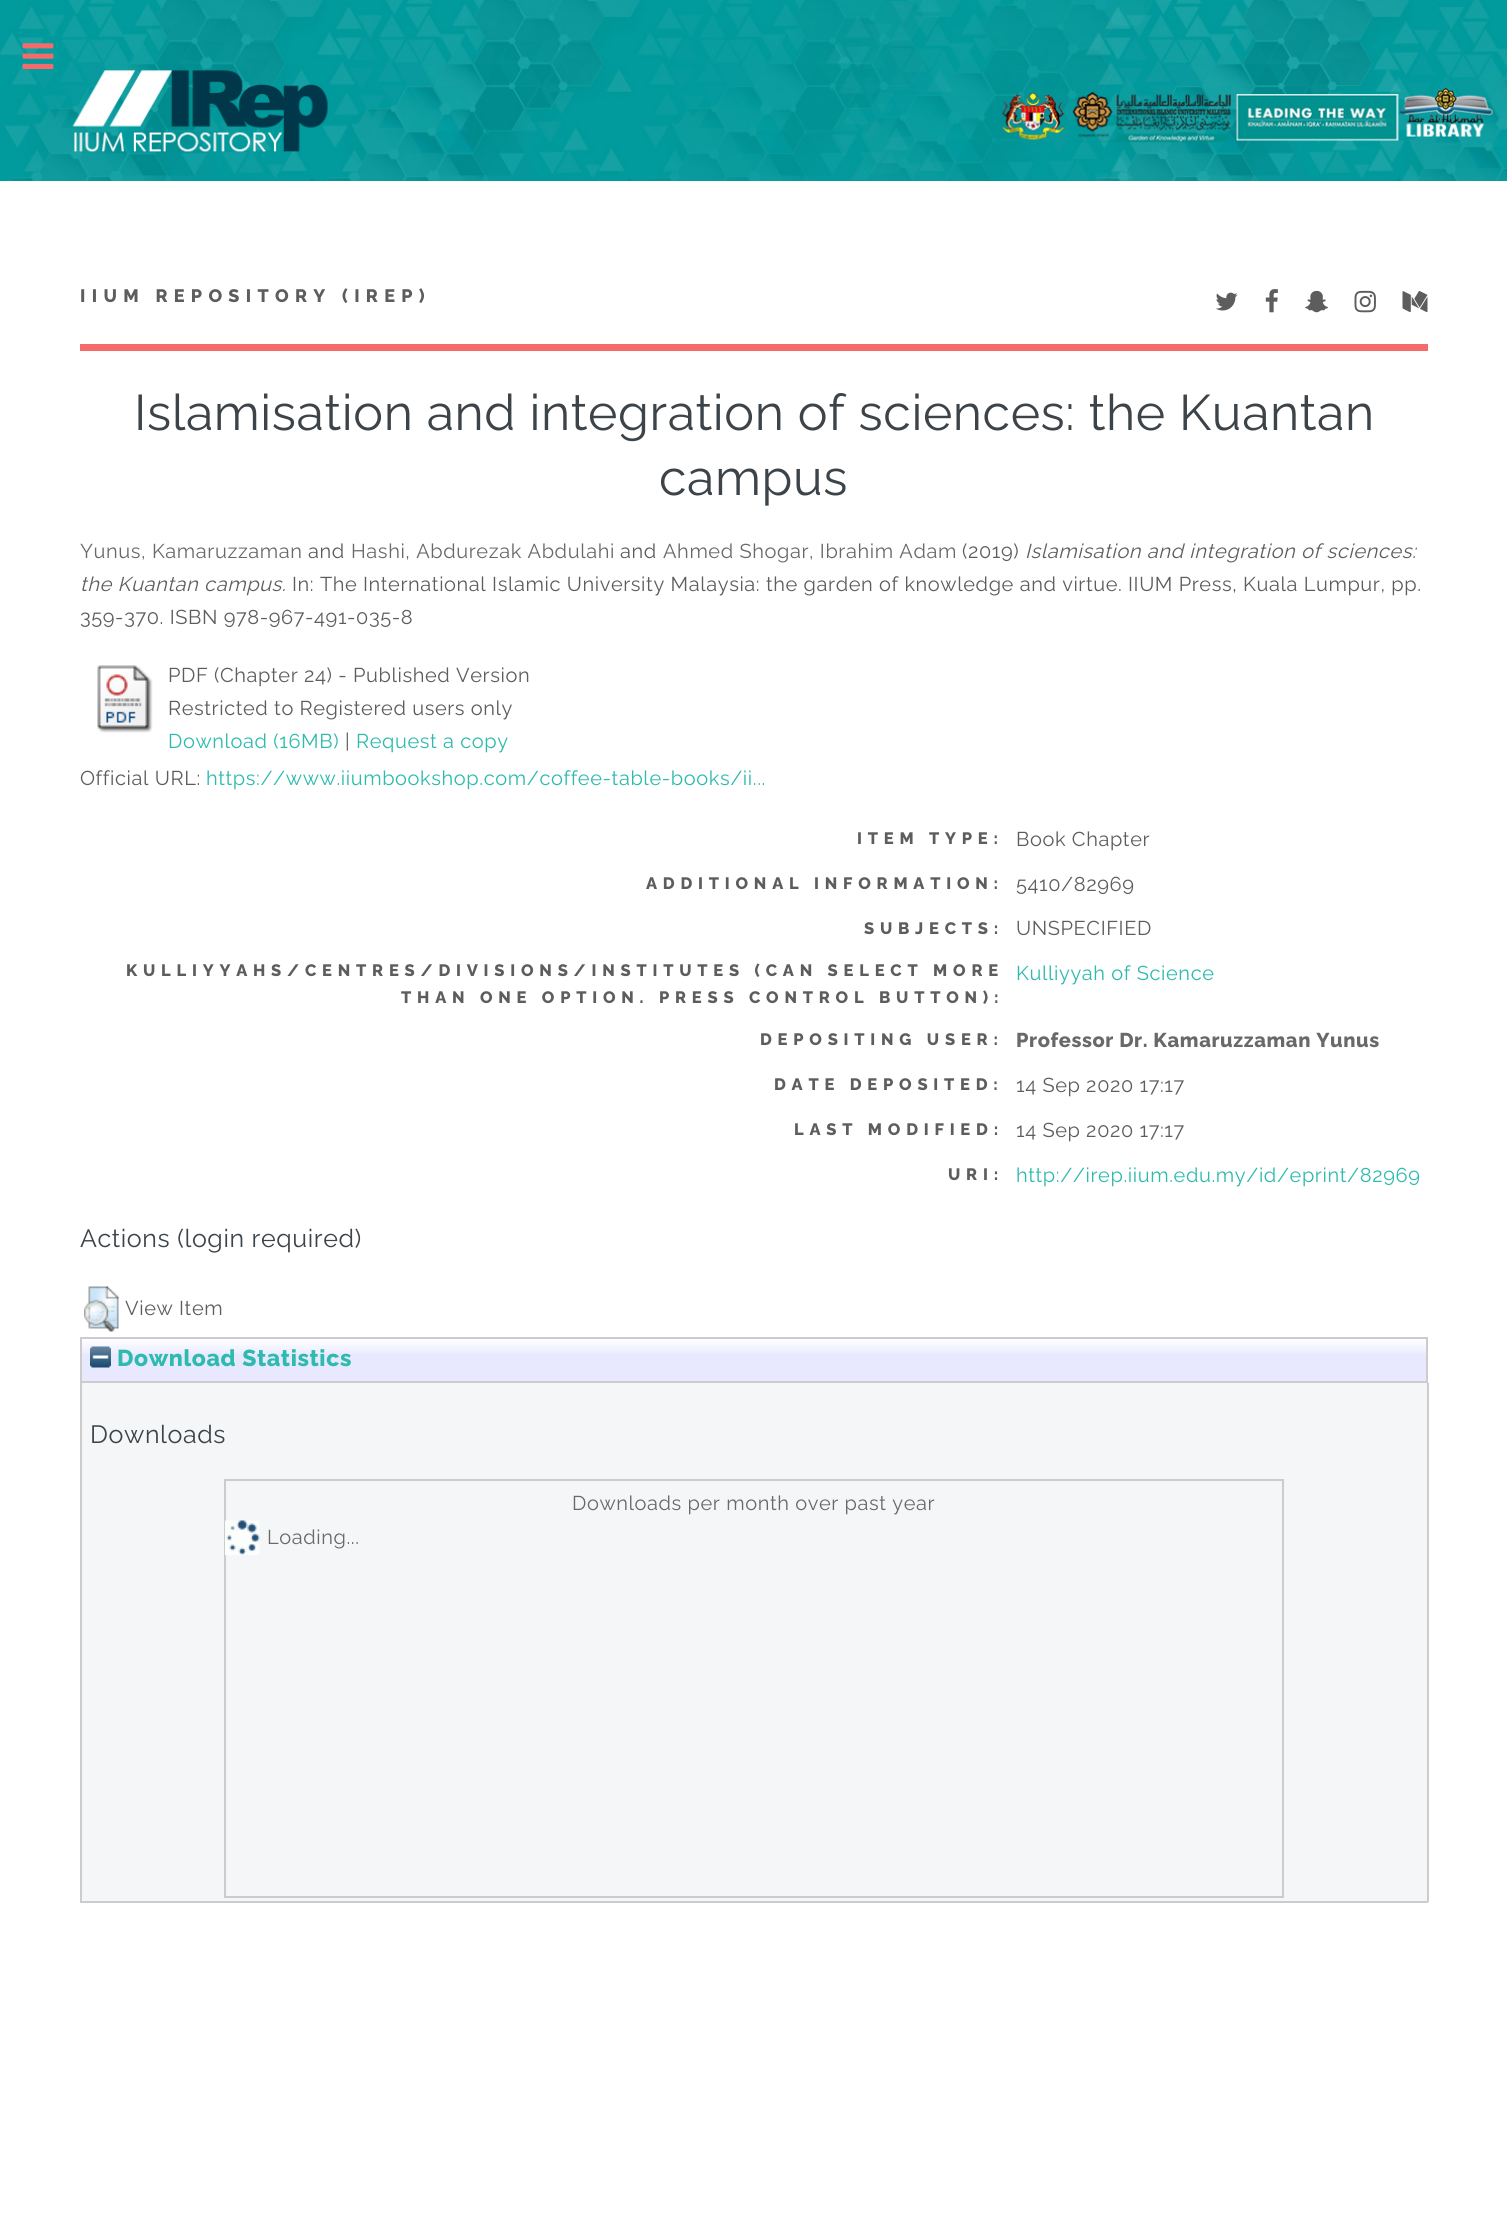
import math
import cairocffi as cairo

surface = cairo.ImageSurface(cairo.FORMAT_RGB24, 1507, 2223)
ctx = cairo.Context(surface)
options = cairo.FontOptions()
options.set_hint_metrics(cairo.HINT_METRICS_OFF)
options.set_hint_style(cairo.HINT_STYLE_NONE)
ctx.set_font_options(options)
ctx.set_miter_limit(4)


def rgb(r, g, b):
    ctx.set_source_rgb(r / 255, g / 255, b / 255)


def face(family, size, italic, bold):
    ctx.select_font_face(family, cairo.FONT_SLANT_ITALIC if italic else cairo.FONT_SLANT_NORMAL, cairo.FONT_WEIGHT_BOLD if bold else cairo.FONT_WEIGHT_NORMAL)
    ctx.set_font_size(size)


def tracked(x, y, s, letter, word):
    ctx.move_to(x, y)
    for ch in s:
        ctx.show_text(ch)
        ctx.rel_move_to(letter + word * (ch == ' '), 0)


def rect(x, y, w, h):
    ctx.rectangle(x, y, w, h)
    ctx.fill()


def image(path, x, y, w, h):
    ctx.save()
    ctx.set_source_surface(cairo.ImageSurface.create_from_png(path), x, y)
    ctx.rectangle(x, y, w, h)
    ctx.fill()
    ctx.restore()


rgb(255, 255, 255)
ctx.paint()
image('image0.png', 0, 0, 1507, 181)
image('image1.png', 22, 43, 32, 26)
rgb(245, 106, 106)
rect(80, 344, 1348, 7)
face('Raleway ExtraBold', 18, 0, 0)
rgb(93, 93, 93)
tracked(80, 302, 'IIUM REPOSITORY (IREP)', 6.3, 0)
image('image2.png', 1215, 292, 23, 19)
image('image3.png', 1265, 289, 13, 24)
image('image4.png', 1305, 290, 23, 23)
image('image5.png', 1354, 290, 22, 23)
image('image6.png', 1402, 291, 26, 22)
face('Raleway', 50, 0, 0)
rgb(61, 68, 73)
tracked(134, 430, 'Islamisation and integration of sciences: the Kuantan', 0.6, 0)
tracked(659, 495, 'campus', 0.6, 0)
face('Raleway', 20, 0, 0)
rgb(105, 105, 105)
tracked(80, 558, 'Yunus, Kamaruzzaman', 0.6, 0)
rgb(93, 93, 93)
tracked(308, 558, 'and', 0.6, 0)
rgb(105, 105, 105)
tracked(351, 558, 'Hashi, Abdurezak Abdulahi', 0.6, 0)
rgb(93, 93, 93)
tracked(620, 558, 'and', 0.6, 0)
rgb(105, 105, 105)
tracked(663, 558, 'Ahmed Shogar, Ibrahim Adam', 0.6, 0)
rgb(93, 93, 93)
tracked(962, 558, '(2019)', 0.6, 0)
face('Raleway', 20, 1, 0)
tracked(1025, 558, 'Islamisation and integration of sciences:', 0.6, 0)
tracked(80, 591, 'the Kuantan campus.', 0.6, 0)
face('Raleway', 20, 0, 0)
tracked(292, 591, 'In: The International Islamic University Malaysia: the garden of knowledge and virtue.', 0.6, 0)
tracked(1128, 591, 'IIUM Press, Kuala Lumpur, pp.', 0.6, 0)
tracked(80, 624, '359-370. ISBN 978-967-491-035-8', 0.6, 0)
image('image7.png', 97, 665, 56, 68)
tracked(168, 682, 'PDF (Chapter 24) - Published Version', 0.6, 0)
tracked(168, 715, 'Restricted to Registered users only', 0.6, 0)
rgb(46, 186, 174)
tracked(168, 748, 'Download (16MB)', 0.6, 0)
rgb(93, 93, 93)
tracked(345, 748, '|', 0.6, 0)
rgb(46, 186, 174)
tracked(356, 748, 'Request a copy', 0.6, 0)
rgb(93, 93, 93)
tracked(80, 785, 'Official URL:', 0.6, 0)
rgb(46, 186, 174)
tracked(206, 785, 'https://www.iiumbookshop.com/coffee-table-books/ii...', 0.6, 0)
face('Raleway ExtraBold', 16.5, 0, 0)
rgb(93, 93, 93)
tracked(857, 844, 'ITEM TYPE:', 5.78, 0)
face('Raleway', 20, 0, 0)
tracked(1016, 846, 'Book Chapter', 0.6, 0)
face('Raleway ExtraBold', 16.5, 0, 0)
tracked(646, 889, 'ADDITIONAL INFORMATION:', 5.78, 0)
face('Raleway', 20, 0, 0)
tracked(1016, 891, '5410/82969', 0.6, 0)
face('Raleway ExtraBold', 16.5, 0, 0)
tracked(864, 934, 'SUBJECTS:', 5.78, 0)
face('Raleway', 20, 0, 0)
tracked(1016, 935, 'UNSPECIFIED', 0.6, 0)
face('Raleway ExtraBold', 16.5, 0, 0)
tracked(126, 976, 'KULLIYYAHS/CENTRES/DIVISIONS/INSTITUTES (CAN SELECT MORE', 5.78, 0)
tracked(401, 1003, 'THAN ONE OPTION. PRESS CONTROL BUTTON):', 5.78, 0)
face('Raleway', 20, 0, 0)
rgb(46, 186, 174)
tracked(1016, 980, 'Kulliyyah of Science', 0.6, 0)
face('Raleway ExtraBold', 16.5, 0, 0)
rgb(93, 93, 93)
tracked(760, 1045, 'DEPOSITING USER:', 5.78, 0)
face('Raleway ExtraBold', 20, 0, 0)
rgb(105, 105, 105)
tracked(1016, 1047, 'Professor Dr. Kamaruzzaman Yunus', 0.6, 0)
face('Raleway ExtraBold', 16.5, 0, 0)
rgb(93, 93, 93)
tracked(774, 1090, 'DATE DEPOSITED:', 5.78, 0)
face('Raleway', 20, 0, 0)
tracked(1016, 1092, '14 Sep 2020 17:17', 0.6, 0)
face('Raleway ExtraBold', 16.5, 0, 0)
tracked(794, 1135, 'LAST MODIFIED:', 5.78, 0)
face('Raleway', 20, 0, 0)
tracked(1016, 1137, '14 Sep 2020 17:17', 0.6, 0)
face('Raleway ExtraBold', 16.5, 0, 0)
tracked(948, 1180, 'URI:', 5.78, 0)
face('Raleway', 20, 0, 0)
rgb(46, 186, 174)
tracked(1016, 1182, 'http://irep.iium.edu.my/id/eprint/82969', 0.6, 0)
face('Raleway', 25, 0, 0)
rgb(61, 68, 73)
tracked(80, 1247, 'Actions (login required)', 0.6, 0)
image('image8.png', 84, 1286, 35, 46)
face('Raleway', 20, 0, 0)
rgb(93, 93, 93)
tracked(125, 1315, 'View Item', 0.6, 0)
rgb(232, 232, 255)
rect(82, 1339, 1344, 42)
image('image9.png', 82, 1339, 1344, 15)
ctx.rectangle(81, 1338, 1346, 44)
rgb(204, 204, 204)
ctx.stroke()
image('image10.png', 90, 1346, 21, 22)
face('Raleway ExtraBold', 23, 0, 0)
rgb(46, 186, 174)
tracked(117, 1366, 'Download Statistics', 0.6, 0)
rgb(245, 246, 247)
rect(82, 1383, 1345, 518)
rgb(204, 204, 204)
rect(1427, 1383, 2, 519)
rect(80, 1901, 1348, 2)
rect(80, 1383, 2, 519)
face('Raleway', 25, 0, 0)
rgb(61, 68, 73)
tracked(90, 1443, 'Downloads', 0.6, 0)
ctx.rectangle(225, 1480, 1058, 417)
rgb(204, 204, 204)
ctx.stroke()
face('Raleway', 20, 0, 0)
rgb(105, 105, 105)
tracked(572, 1510, 'Downloads per month over past year', 0.6, 0)
image('image11.png', 225, 1520, 35, 35)
tracked(267, 1544, 'Loading...', 0.6, 0)
surface.write_to_png('render.png')
